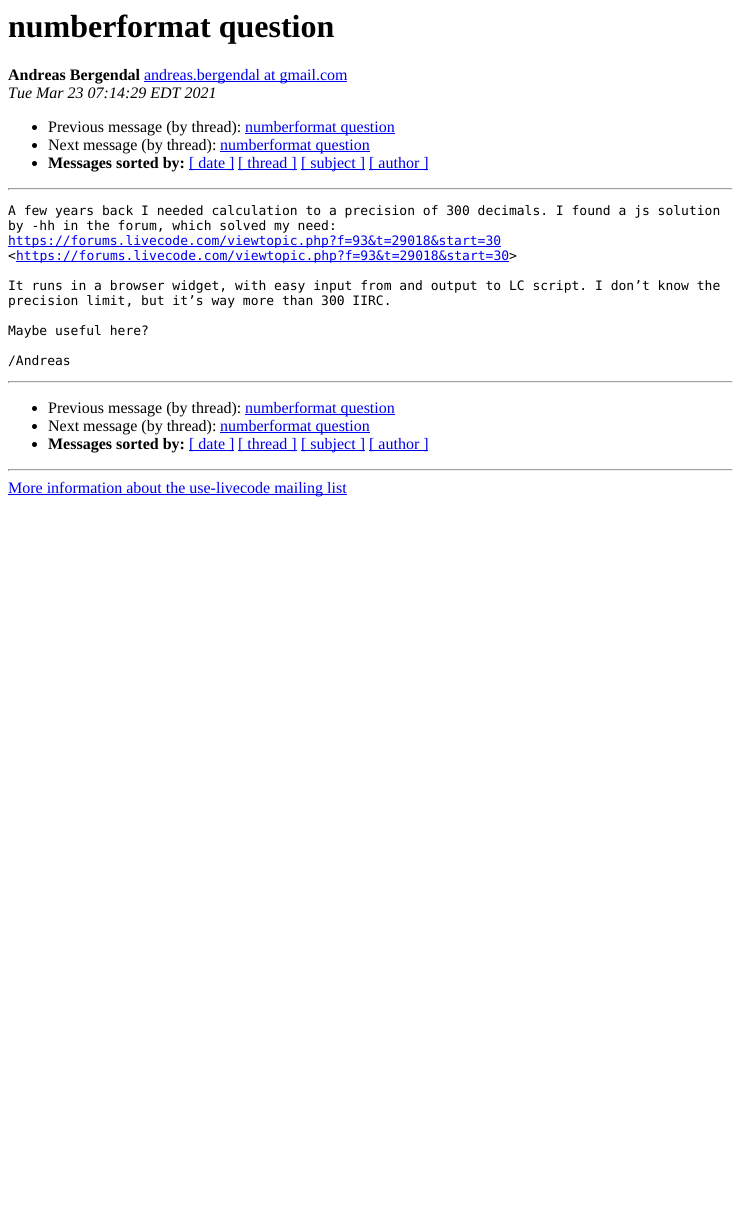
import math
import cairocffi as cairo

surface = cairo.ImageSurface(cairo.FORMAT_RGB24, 741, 1214)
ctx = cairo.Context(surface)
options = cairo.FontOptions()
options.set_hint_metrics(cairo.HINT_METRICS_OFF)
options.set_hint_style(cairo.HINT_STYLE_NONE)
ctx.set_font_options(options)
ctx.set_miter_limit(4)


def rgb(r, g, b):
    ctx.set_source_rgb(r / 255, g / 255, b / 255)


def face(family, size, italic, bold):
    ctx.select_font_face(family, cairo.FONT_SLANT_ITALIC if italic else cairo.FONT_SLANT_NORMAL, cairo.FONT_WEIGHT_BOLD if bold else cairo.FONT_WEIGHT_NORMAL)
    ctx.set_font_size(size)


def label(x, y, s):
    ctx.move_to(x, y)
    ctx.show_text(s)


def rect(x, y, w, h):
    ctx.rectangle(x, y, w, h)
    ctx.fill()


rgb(255, 255, 255)
ctx.paint()
face('Liberation Serif', 32, 0, 1)
rgb(0, 0, 0)
label(8, 37, 'numberformat question')
face('Liberation Serif', 16, 0, 1)
label(8, 80, 'Andreas Bergendal')
rgb(0, 0, 238)
rect(144, 81, 203, 1)
face('Liberation Serif', 16, 0, 0)
label(144, 80, 'andreas.bergendal at gmail.com')
face('Liberation Serif', 16, 1, 0)
rgb(0, 0, 0)
label(8, 98, 'Tue Mar 23 07:14:29 EDT 2021')
ctx.new_path()
ctx.arc(34.5, 127.5, 2.5, 0, 2 * math.pi)
ctx.fill()
face('Liberation Serif', 16, 0, 0)
label(48, 132, 'Previous message (by thread):')
rgb(0, 0, 238)
rect(245, 133, 150, 1)
label(245, 132, 'numberformat question')
rgb(0, 0, 0)
ctx.new_path()
ctx.arc(34.5, 145.5, 2.5, 0, 2 * math.pi)
ctx.fill()
label(48, 150, 'Next message (by thread):')
rgb(0, 0, 238)
rect(220, 151, 150, 1)
label(220, 150, 'numberformat question')
rgb(0, 0, 0)
ctx.new_path()
ctx.arc(34.5, 163.5, 2.5, 0, 2 * math.pi)
ctx.fill()
face('Liberation Serif', 16, 0, 1)
label(48, 168, 'Messages sorted by:')
rgb(0, 0, 238)
rect(189, 169, 45, 1)
face('Liberation Serif', 16, 0, 0)
label(189, 168, '[ date ]')
rect(238, 169, 59, 1)
label(238, 168, '[ thread ]')
rect(301, 169, 64, 1)
label(301, 168, '[ subject ]')
rect(369, 169, 59, 1)
label(369, 168, '[ author ]')
rgb(159, 159, 159)
rect(8, 188, 725, 1)
rgb(238, 238, 238)
rect(732, 188, 1, 2)
rect(8, 189, 725, 1)
rgb(159, 159, 159)
rect(8, 188, 1, 2)
face('DejaVu Sans Mono', 13, 0, 0)
rgb(0, 0, 0)
label(8, 215, 'A few years back I needed calculation to a precision of 300 decimals. I found a js solution')
label(8, 230, 'by -hh in the forum, which solved my need:')
rgb(0, 0, 238)
rect(8, 246, 493, 1)
label(8, 245, 'https://forums.livecode.com/viewtopic.php?f=93&t=29018&start=30')
rgb(0, 0, 0)
label(8, 260, '<')
rgb(0, 0, 238)
rect(16, 261, 493, 1)
label(16, 260, 'https://forums.livecode.com/viewtopic.php?f=93&t=29018&start=30')
rgb(0, 0, 0)
label(509, 260, '>')
label(8, 290, 'It runs in a browser widget, with easy input from and output to LC script. I don’t know the')
label(8, 305, 'precision limit, but it’s way more than 300 IIRC.')
label(8, 335, 'Maybe useful here?')
label(8, 365, '/Andreas')
rgb(159, 159, 159)
rect(8, 381, 725, 1)
rgb(238, 238, 238)
rect(732, 381, 1, 2)
rect(8, 382, 725, 1)
rgb(159, 159, 159)
rect(8, 381, 1, 2)
rgb(0, 0, 0)
ctx.new_path()
ctx.arc(34.5, 408.5, 2.5, 0, 2 * math.pi)
ctx.fill()
face('Liberation Serif', 16, 0, 0)
label(48, 413, 'Previous message (by thread):')
rgb(0, 0, 238)
rect(245, 414, 150, 1)
label(245, 413, 'numberformat question')
rgb(0, 0, 0)
ctx.new_path()
ctx.arc(34.5, 426.5, 2.5, 0, 2 * math.pi)
ctx.fill()
label(48, 431, 'Next message (by thread):')
rgb(0, 0, 238)
rect(220, 432, 150, 1)
label(220, 431, 'numberformat question')
rgb(0, 0, 0)
ctx.new_path()
ctx.arc(34.5, 444.5, 2.5, 0, 2 * math.pi)
ctx.fill()
face('Liberation Serif', 16, 0, 1)
label(48, 449, 'Messages sorted by:')
rgb(0, 0, 238)
rect(189, 450, 45, 1)
face('Liberation Serif', 16, 0, 0)
label(189, 449, '[ date ]')
rect(238, 450, 59, 1)
label(238, 449, '[ thread ]')
rect(301, 450, 64, 1)
label(301, 449, '[ subject ]')
rect(369, 450, 59, 1)
label(369, 449, '[ author ]')
rgb(159, 159, 159)
rect(8, 469, 725, 1)
rgb(238, 238, 238)
rect(732, 469, 1, 2)
rect(8, 470, 725, 1)
rgb(159, 159, 159)
rect(8, 469, 1, 2)
rgb(0, 0, 238)
rect(8, 494, 339, 1)
label(8, 493, 'More information about the use-livecode mailing list')
surface.write_to_png('render.png')
